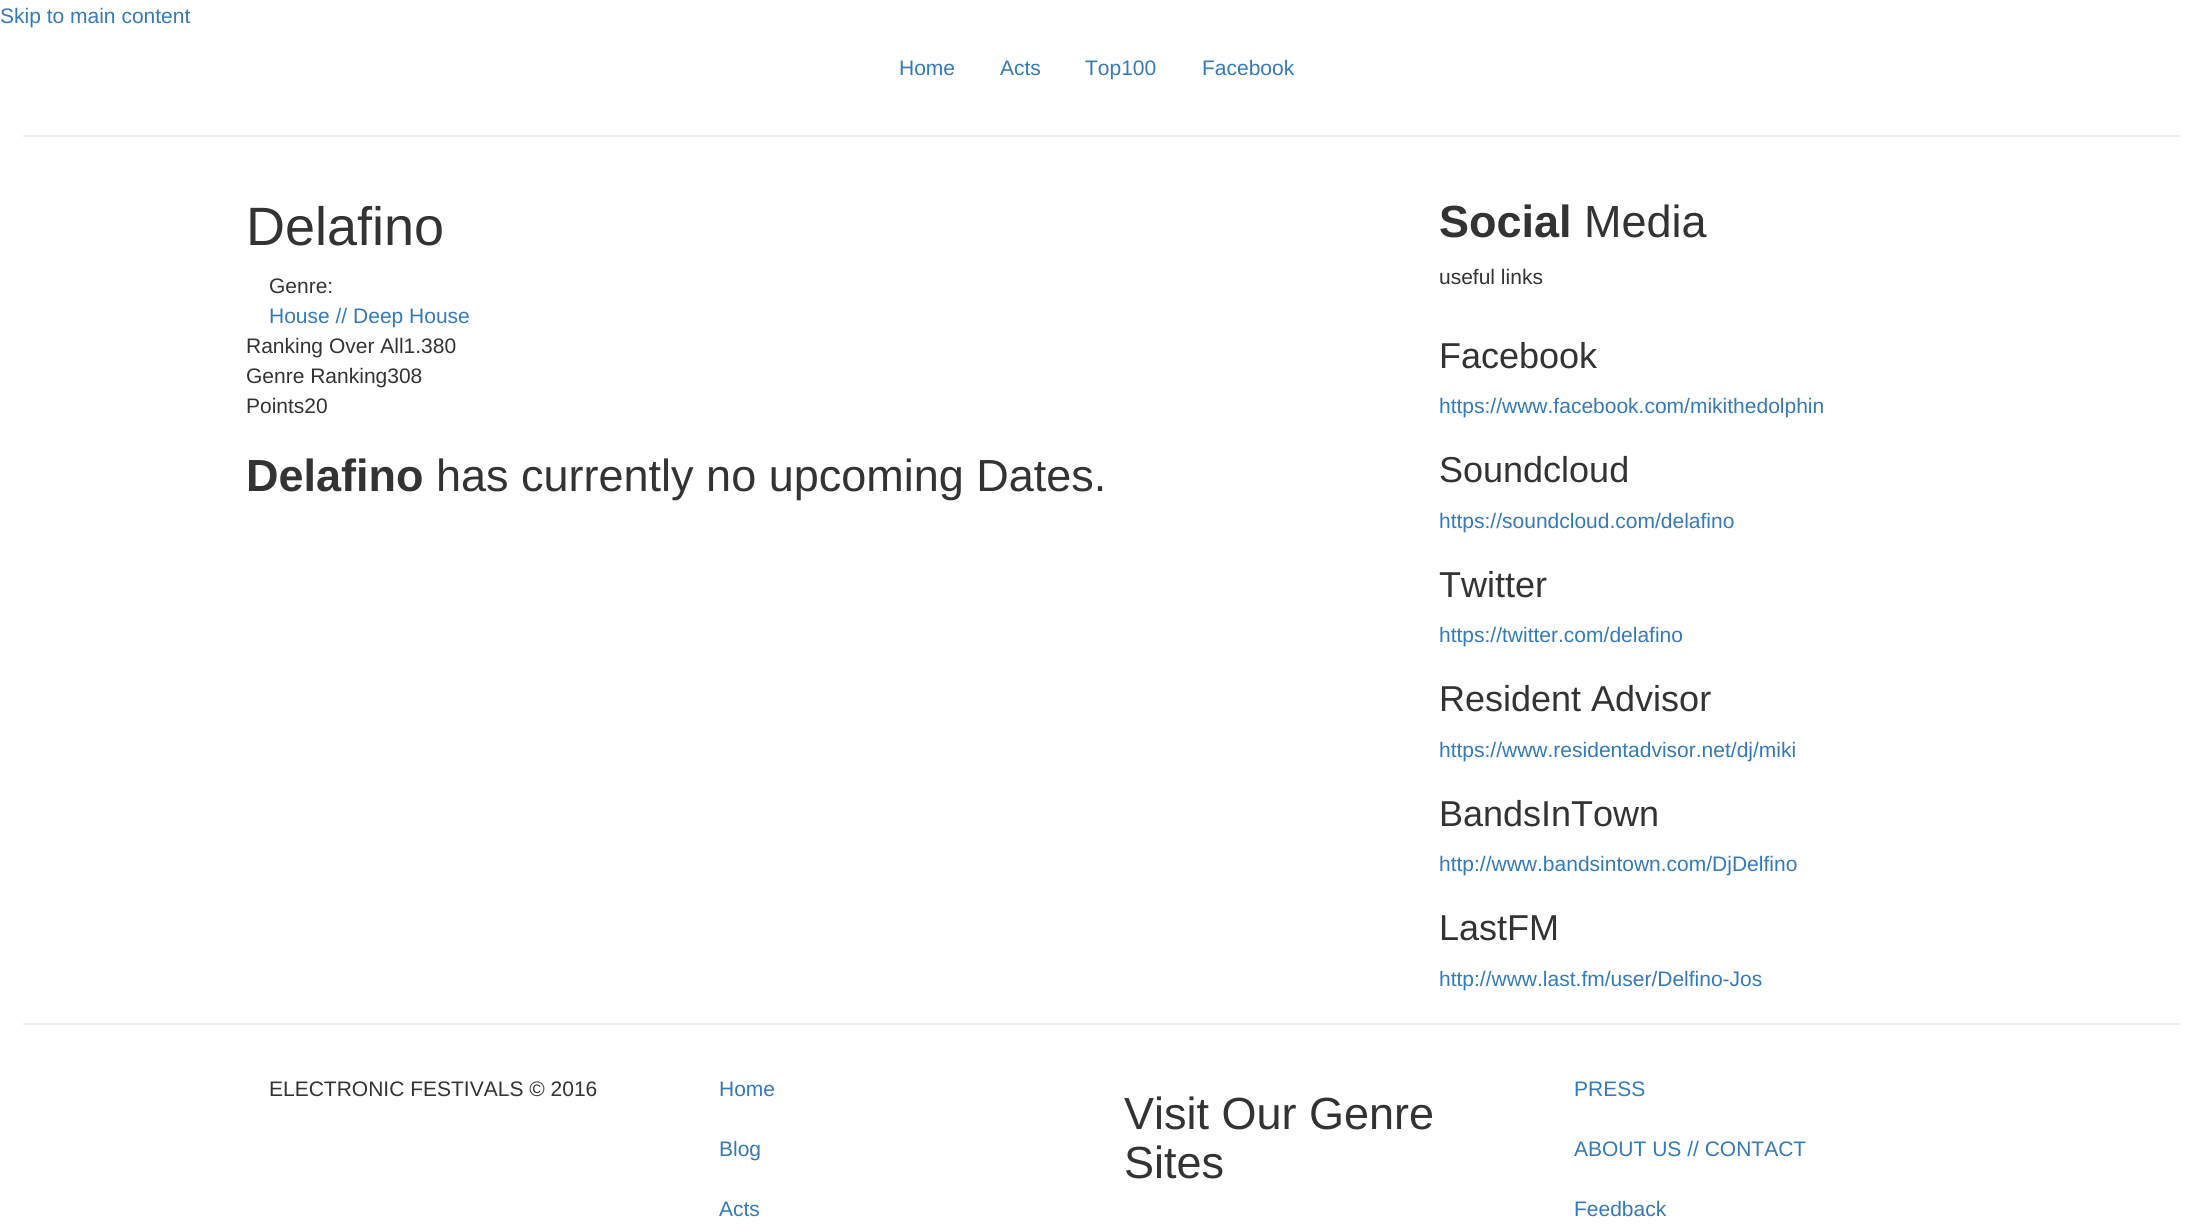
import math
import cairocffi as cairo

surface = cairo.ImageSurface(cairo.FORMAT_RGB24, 2201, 1232)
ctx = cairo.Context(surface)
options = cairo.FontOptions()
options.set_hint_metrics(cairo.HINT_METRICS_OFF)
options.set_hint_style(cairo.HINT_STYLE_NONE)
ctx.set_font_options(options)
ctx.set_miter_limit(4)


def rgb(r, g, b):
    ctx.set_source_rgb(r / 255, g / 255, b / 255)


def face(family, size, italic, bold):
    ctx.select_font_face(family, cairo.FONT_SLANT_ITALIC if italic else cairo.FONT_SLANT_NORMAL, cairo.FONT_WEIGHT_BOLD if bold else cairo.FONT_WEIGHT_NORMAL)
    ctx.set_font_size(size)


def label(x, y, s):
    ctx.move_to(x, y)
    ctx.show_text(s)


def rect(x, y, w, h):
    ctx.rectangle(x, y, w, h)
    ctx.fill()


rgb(255, 255, 255)
ctx.paint()
face('Liberation Sans', 21, 0, 0)
rgb(51, 122, 183)
label(0, 23, 'Skip to main content')
label(899, 75, 'Home')
label(1000, 75, 'Acts')
label(1085, 75, 'Top100')
label(1202, 75, 'Facebook')
rgb(238, 238, 238)
rect(23, 135, 2157, 2)
face('Liberation Sans', 54, 0, 0)
rgb(51, 51, 51)
label(246, 245, 'Delafino')
face('Liberation Sans', 21, 0, 0)
label(269, 293, 'Genre:')
rgb(51, 122, 183)
label(269, 323, 'House // Deep House')
rgb(51, 51, 51)
label(246, 353, 'Ranking Over All1.380')
label(246, 383, 'Genre Ranking308')
label(246, 413, 'Points20')
face('Liberation Sans', 45, 0, 1)
label(246, 491, 'Delafino')
face('Liberation Sans', 45, 0, 0)
label(436, 491, 'has currently no upcoming Dates.')
face('Liberation Sans', 45, 0, 1)
label(1439, 237, 'Social')
face('Liberation Sans', 45, 0, 0)
label(1584, 237, 'Media')
face('Liberation Sans', 21, 0, 0)
label(1439, 284, 'useful links')
face('Liberation Sans', 36, 0, 0)
label(1439, 368, 'Facebook')
face('Liberation Sans', 21, 0, 0)
rgb(51, 122, 183)
label(1439, 413, 'https://www.facebook.com/mikithedolphin')
face('Liberation Sans', 36, 0, 0)
rgb(51, 51, 51)
label(1439, 482, 'Soundcloud')
face('Liberation Sans', 21, 0, 0)
rgb(51, 122, 183)
label(1439, 528, 'https://soundcloud.com/delafino')
face('Liberation Sans', 36, 0, 0)
rgb(51, 51, 51)
label(1439, 597, 'Twitter')
face('Liberation Sans', 21, 0, 0)
rgb(51, 122, 183)
label(1439, 642, 'https://twitter.com/delafino')
face('Liberation Sans', 36, 0, 0)
rgb(51, 51, 51)
label(1439, 711, 'Resident Advisor')
face('Liberation Sans', 21, 0, 0)
rgb(51, 122, 183)
label(1439, 757, 'https://www.residentadvisor.net/dj/miki')
face('Liberation Sans', 36, 0, 0)
rgb(51, 51, 51)
label(1439, 826, 'BandsInTown')
face('Liberation Sans', 21, 0, 0)
rgb(51, 122, 183)
label(1439, 871, 'http://www.bandsintown.com/DjDelfino')
face('Liberation Sans', 36, 0, 0)
rgb(51, 51, 51)
label(1439, 940, 'LastFM')
face('Liberation Sans', 21, 0, 0)
rgb(51, 122, 183)
label(1439, 986, 'http://www.last.fm/user/Delfino-Jos')
rgb(238, 238, 238)
rect(23, 1023, 2157, 2)
rgb(51, 51, 51)
label(269, 1096, 'ELECTRONIC FESTIVALS © 2016')
rgb(51, 122, 183)
label(719, 1096, 'Home')
label(719, 1156, 'Blog')
label(719, 1216, 'Acts')
face('Liberation Sans', 45, 0, 0)
rgb(51, 51, 51)
label(1124, 1129, 'Visit Our Genre')
label(1124, 1178, 'Sites')
face('Liberation Sans', 21, 0, 0)
rgb(51, 122, 183)
label(1574, 1096, 'PRESS')
label(1574, 1156, 'ABOUT US // CONTACT')
label(1574, 1216, 'Feedback')
surface.write_to_png('render.png')
